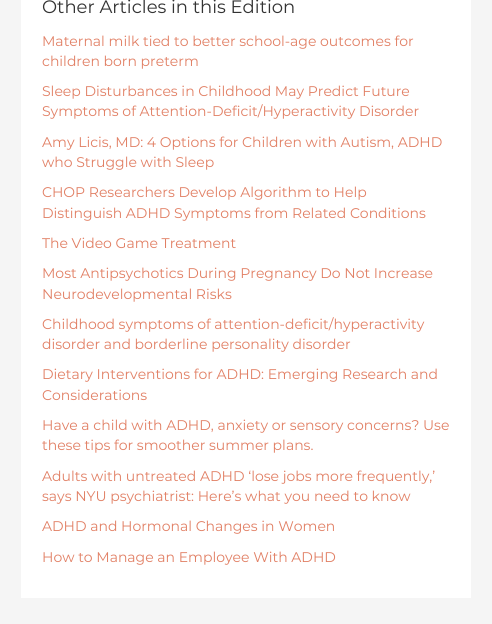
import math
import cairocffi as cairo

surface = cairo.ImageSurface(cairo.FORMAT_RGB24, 492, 624)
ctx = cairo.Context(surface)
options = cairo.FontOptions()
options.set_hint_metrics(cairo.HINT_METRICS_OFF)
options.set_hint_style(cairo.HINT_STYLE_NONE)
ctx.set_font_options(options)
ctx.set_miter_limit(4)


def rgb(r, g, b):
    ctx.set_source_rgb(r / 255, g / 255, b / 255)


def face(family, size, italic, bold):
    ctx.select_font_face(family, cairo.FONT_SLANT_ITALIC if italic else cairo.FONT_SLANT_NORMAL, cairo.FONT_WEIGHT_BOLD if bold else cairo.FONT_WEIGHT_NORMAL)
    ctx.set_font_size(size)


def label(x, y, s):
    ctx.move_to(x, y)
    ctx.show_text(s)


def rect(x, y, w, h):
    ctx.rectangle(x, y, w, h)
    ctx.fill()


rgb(245, 245, 245)
ctx.paint()
rgb(255, 255, 255)
rect(21, 0, 450, 598)
face('Montserrat', 18, 0, 0)
rgb(51, 51, 51)
label(42, 13, 'Other Articles in this Edition')
face('Montserrat', 14, 0, 0)
rgb(225, 127, 100)
label(42, 46, 'Maternal milk tied to better school-age outcomes for')
label(42, 66, 'children born preterm')
label(42, 96, 'Sleep Disturbances in Childhood May Predict Future')
label(42, 116, 'Symptoms of Attention-Deficit/Hyperactivity Disorder')
label(42, 147, 'Amy Licis, MD: 4 Options for Children with Autism, ADHD')
label(42, 167, 'who Struggle with Sleep')
label(42, 197, 'CHOP Researchers Develop Algorithm to Help')
label(42, 218, 'Distinguish ADHD Symptoms from Related Conditions')
label(42, 248, 'The Video Game Treatment')
label(42, 278, 'Most Antipsychotics During Pregnancy Do Not Increase')
label(42, 299, 'Neurodevelopmental Risks')
label(42, 329, 'Childhood symptoms of attention-deficit/hyperactivity')
label(42, 349, 'disorder and borderline personality disorder')
label(42, 379, 'Dietary Interventions for ADHD: Emerging Research and')
label(42, 400, 'Considerations')
label(42, 430, 'Have a child with ADHD, anxiety or sensory concerns? Use')
label(42, 450, 'these tips for smoother summer plans.')
label(42, 481, 'Adults with untreated ADHD ‘lose jobs more frequently,’')
label(42, 501, 'says NYU psychiatrist: Here’s what you need to know')
label(42, 531, 'ADHD and Hormonal Changes in Women')
label(42, 562, 'How to Manage an Employee With ADHD')
surface.write_to_png('render.png')
